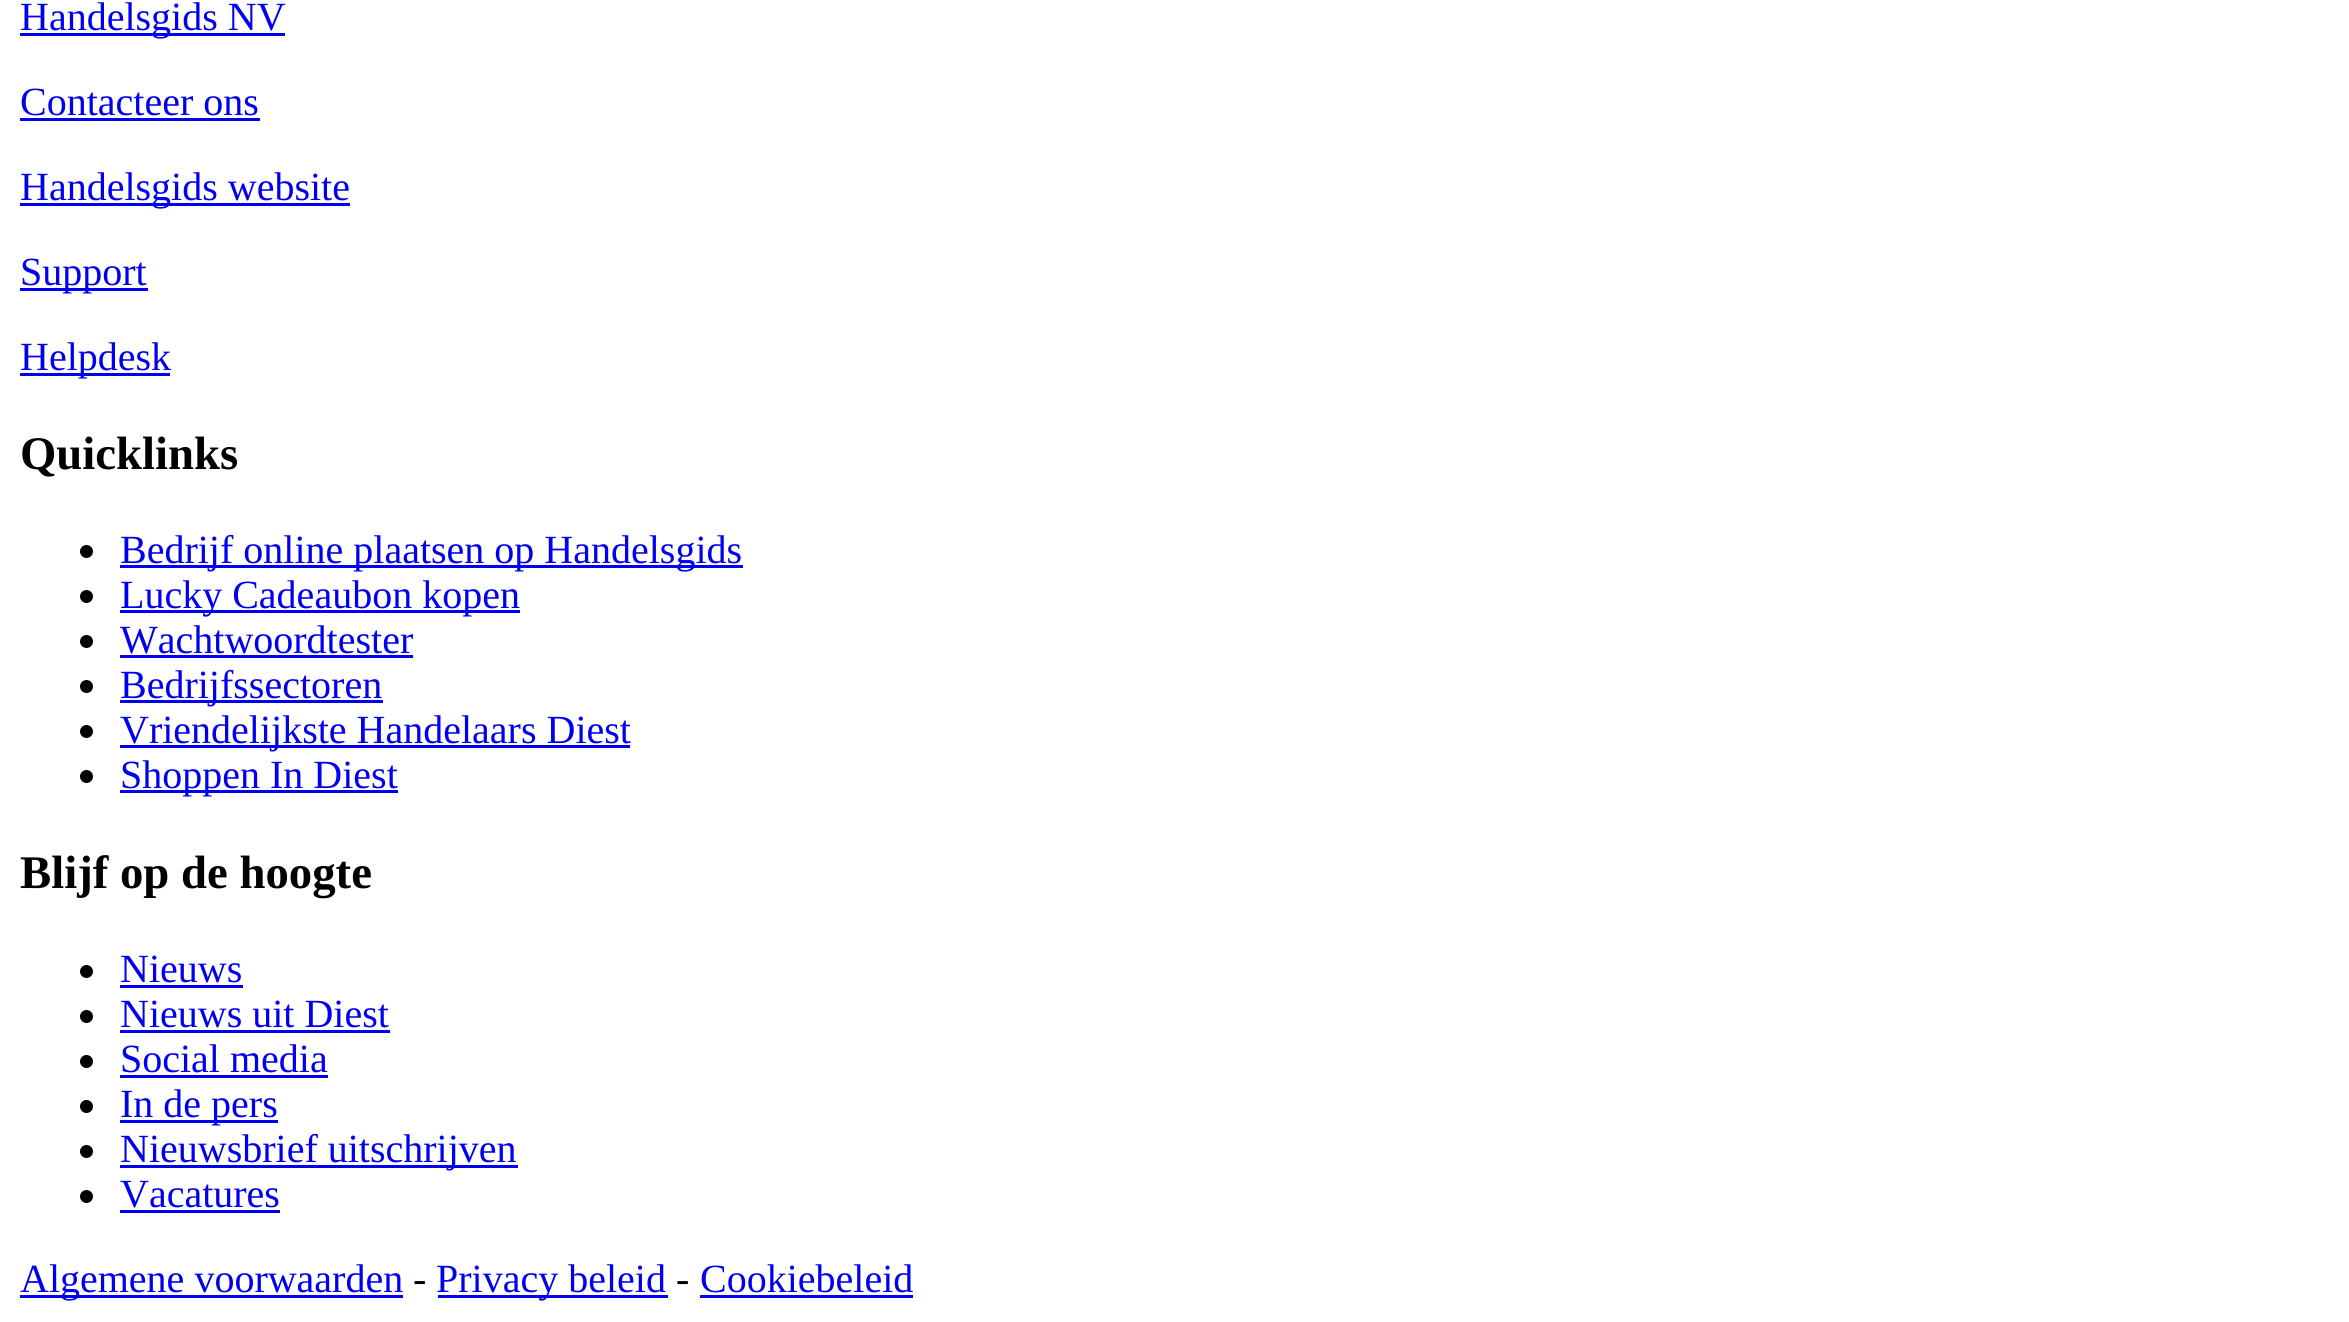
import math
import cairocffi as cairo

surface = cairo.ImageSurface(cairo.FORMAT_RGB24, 2349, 1322)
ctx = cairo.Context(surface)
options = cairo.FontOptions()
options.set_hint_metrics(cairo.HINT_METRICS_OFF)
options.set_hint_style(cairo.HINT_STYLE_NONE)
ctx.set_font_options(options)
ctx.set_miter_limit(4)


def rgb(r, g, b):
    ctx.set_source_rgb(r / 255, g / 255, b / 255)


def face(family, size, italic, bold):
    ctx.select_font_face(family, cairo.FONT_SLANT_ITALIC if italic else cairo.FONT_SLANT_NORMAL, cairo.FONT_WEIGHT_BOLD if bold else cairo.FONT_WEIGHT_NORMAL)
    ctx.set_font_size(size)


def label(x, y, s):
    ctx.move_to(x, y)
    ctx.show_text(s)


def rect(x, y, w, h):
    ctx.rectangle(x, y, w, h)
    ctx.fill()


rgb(255, 255, 255)
ctx.paint()
rgb(0, 0, 238)
rect(20, 33, 265, 3)
face('Liberation Serif', 40, 0, 0)
label(20, 30, 'Handelsgids NV')
label(20, 115, 'Contacteer ons')
rect(20, 118, 240, 3)
rect(20, 203, 330, 3)
label(20, 200, 'Handelsgids website')
rect(20, 288, 128, 3)
label(20, 285, 'Support')
rect(20, 373, 150, 3)
label(20, 370, 'Helpdesk')
face('Liberation Serif', 46.75, 0, 1)
rgb(0, 0, 0)
label(20, 469, 'Quicklinks')
ctx.new_path()
ctx.arc(86.5, 551.5, 6.5, 0, 2 * math.pi)
ctx.fill()
rgb(0, 0, 238)
rect(120, 565, 623, 3)
face('Liberation Serif', 40, 0, 0)
label(120, 563, 'Bedrijf online plaatsen op Handelsgids')
rgb(0, 0, 0)
ctx.new_path()
ctx.arc(86.5, 596.5, 6.5, 0, 2 * math.pi)
ctx.fill()
rgb(0, 0, 238)
rect(120, 610, 400, 3)
label(120, 608, 'Lucky Cadeaubon kopen')
rgb(0, 0, 0)
ctx.new_path()
ctx.arc(86.5, 641.5, 6.5, 0, 2 * math.pi)
ctx.fill()
rgb(0, 0, 238)
label(120, 653, 'Wachtwoordtester')
rect(120, 655, 293, 3)
rgb(0, 0, 0)
ctx.new_path()
ctx.arc(86.5, 686.5, 6.5, 0, 2 * math.pi)
ctx.fill()
rgb(0, 0, 238)
rect(120, 700, 263, 3)
label(120, 698, 'Bedrijfssectoren')
rgb(0, 0, 0)
ctx.new_path()
ctx.arc(86.5, 731.5, 6.5, 0, 2 * math.pi)
ctx.fill()
rgb(0, 0, 238)
rect(120, 745, 510, 3)
label(120, 743, 'Vriendelijkste Handelaars Diest')
rgb(0, 0, 0)
ctx.new_path()
ctx.arc(86.5, 776.5, 6.5, 0, 2 * math.pi)
ctx.fill()
rgb(0, 0, 238)
rect(120, 790, 278, 3)
label(120, 788, 'Shoppen In Diest')
face('Liberation Serif', 46.75, 0, 1)
rgb(0, 0, 0)
label(20, 888, 'Blijf op de hoogte')
ctx.new_path()
ctx.arc(86.5, 971.5, 6.5, 0, 2 * math.pi)
ctx.fill()
face('Liberation Serif', 40, 0, 0)
rgb(0, 0, 238)
label(120, 982, 'Nieuws')
rect(120, 985, 123, 3)
rgb(0, 0, 0)
ctx.new_path()
ctx.arc(86.5, 1016.5, 6.5, 0, 2 * math.pi)
ctx.fill()
rgb(0, 0, 238)
label(120, 1027, 'Nieuws uit Diest')
rect(120, 1030, 270, 3)
rgb(0, 0, 0)
ctx.new_path()
ctx.arc(86.5, 1061.5, 6.5, 0, 2 * math.pi)
ctx.fill()
rgb(0, 0, 238)
label(120, 1072, 'Social media')
rect(120, 1075, 208, 3)
rgb(0, 0, 0)
ctx.new_path()
ctx.arc(86.5, 1106.5, 6.5, 0, 2 * math.pi)
ctx.fill()
rgb(0, 0, 238)
rect(120, 1120, 158, 3)
label(120, 1117, 'In de pers')
rgb(0, 0, 0)
ctx.new_path()
ctx.arc(86.5, 1151.5, 6.5, 0, 2 * math.pi)
ctx.fill()
rgb(0, 0, 238)
rect(120, 1165, 398, 3)
label(120, 1162, 'Nieuwsbrief uitschrijven')
rgb(0, 0, 0)
ctx.new_path()
ctx.arc(86.5, 1196.5, 6.5, 0, 2 * math.pi)
ctx.fill()
rgb(0, 0, 238)
label(120, 1207, 'Vacatures')
rect(120, 1210, 160, 3)
rect(20, 1295, 383, 3)
label(20, 1292, 'Algemene voorwaarden')
rgb(0, 0, 0)
label(413, 1292, '-')
rgb(0, 0, 238)
rect(438, 1295, 230, 3)
label(436, 1292, 'Privacy beleid')
rgb(0, 0, 0)
label(676, 1292, '-')
rgb(0, 0, 238)
label(700, 1292, 'Cookiebeleid')
rect(700, 1295, 213, 3)
surface.write_to_png('render.png')
